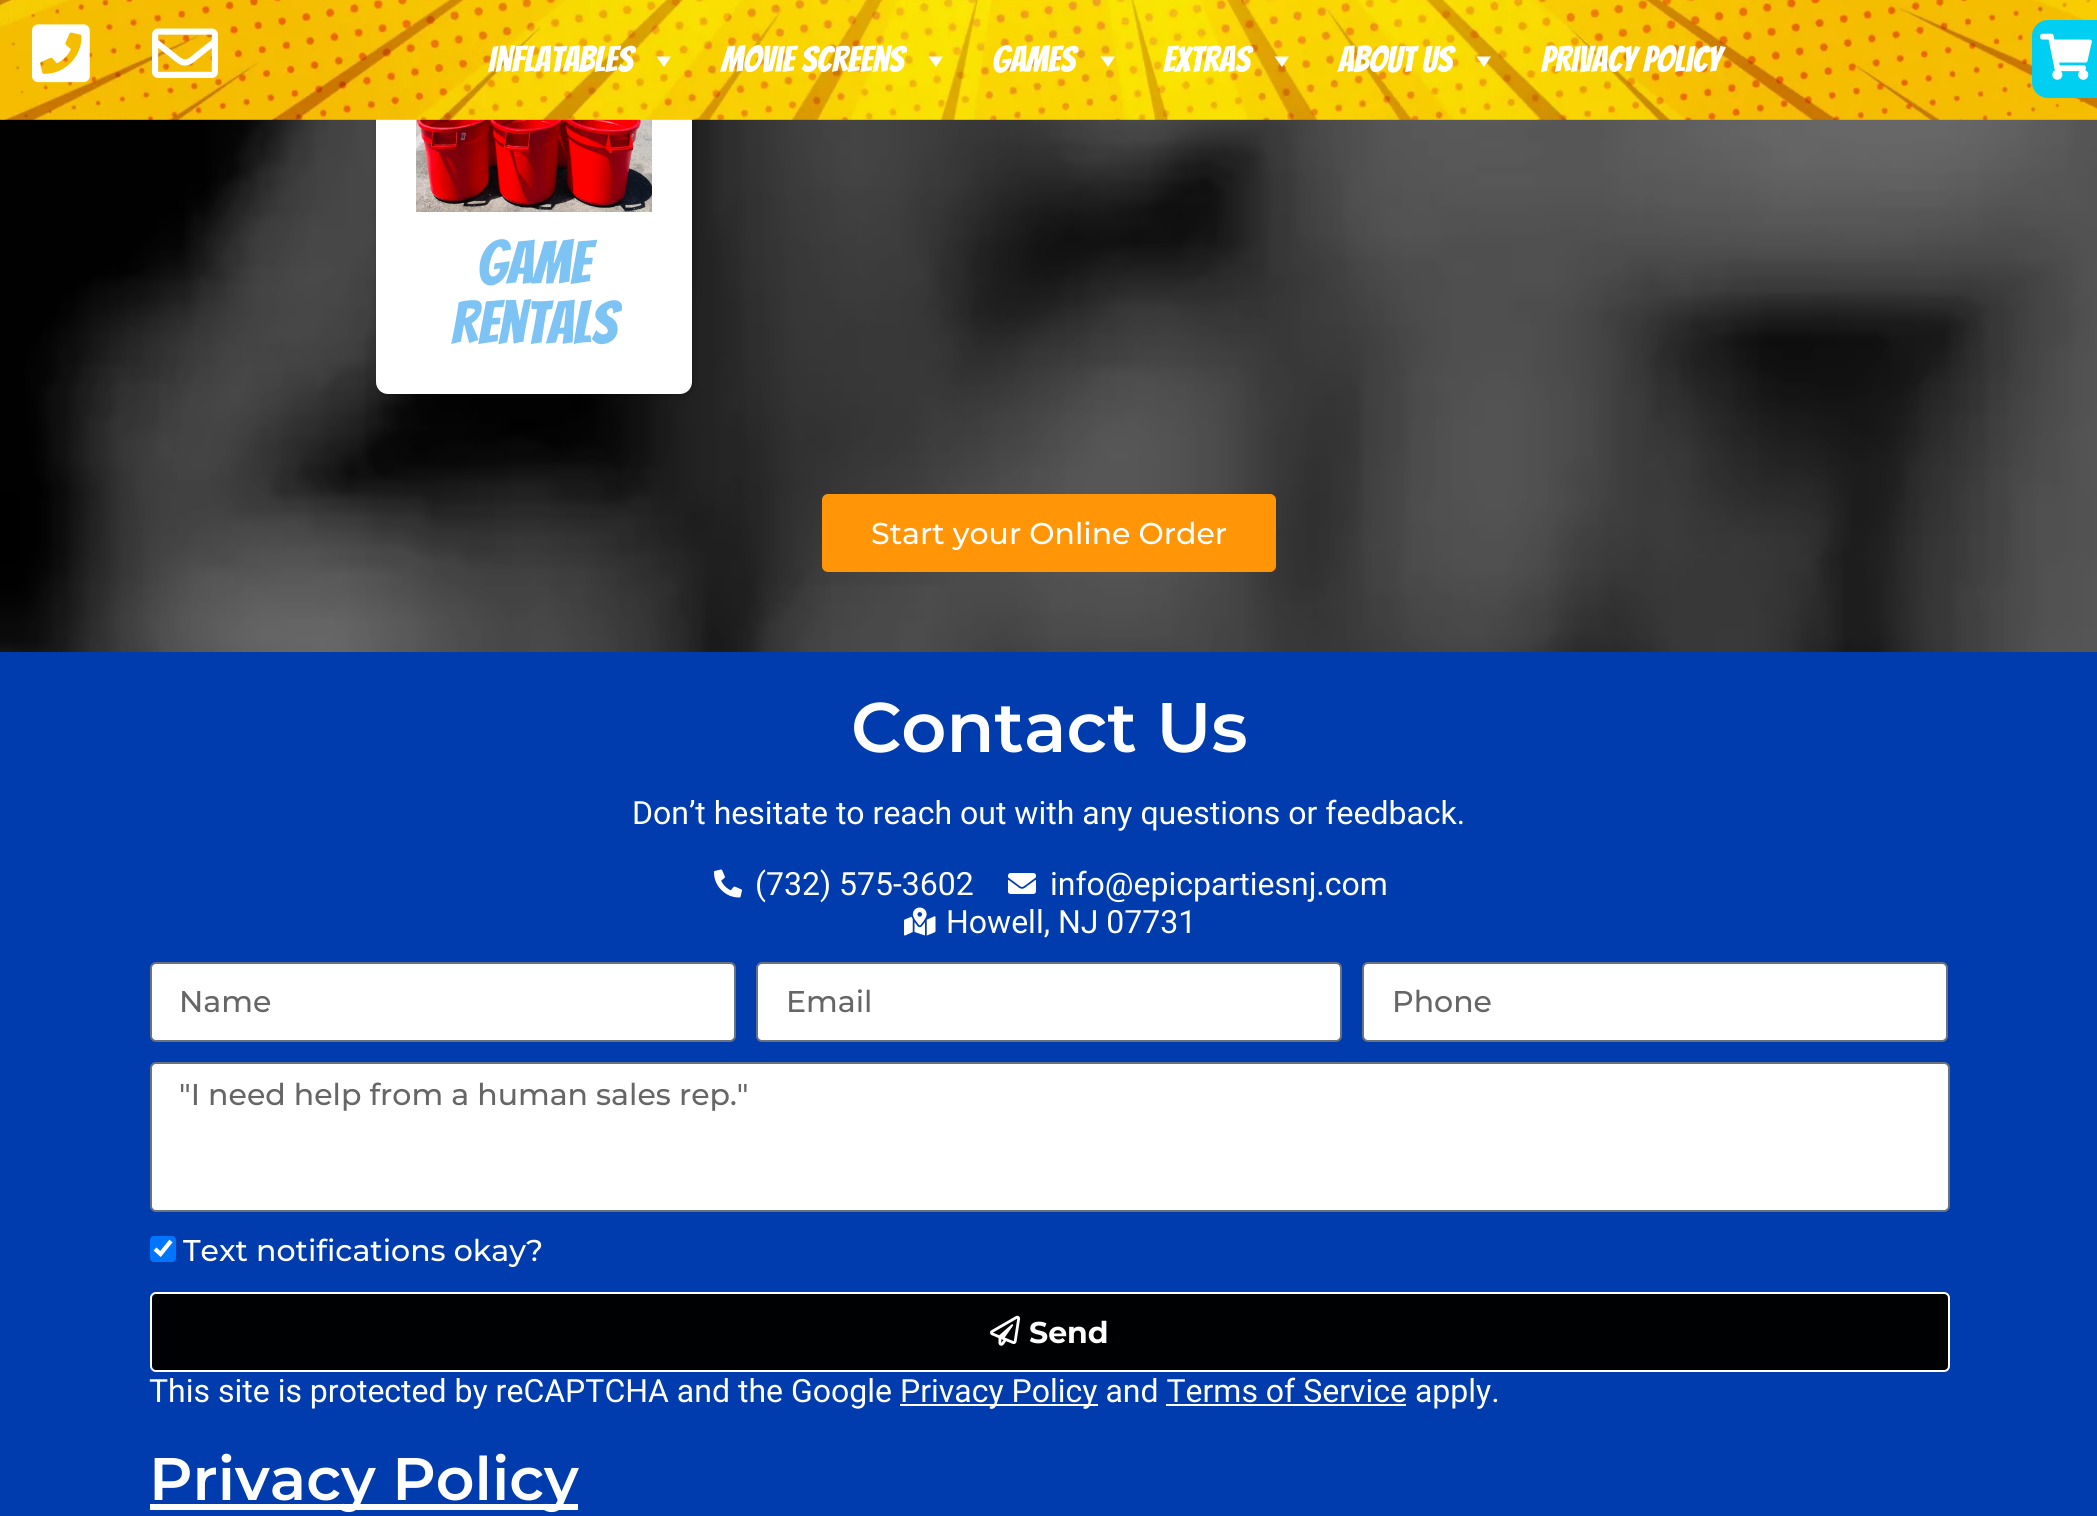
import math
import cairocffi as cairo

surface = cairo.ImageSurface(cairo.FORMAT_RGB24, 2097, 1516)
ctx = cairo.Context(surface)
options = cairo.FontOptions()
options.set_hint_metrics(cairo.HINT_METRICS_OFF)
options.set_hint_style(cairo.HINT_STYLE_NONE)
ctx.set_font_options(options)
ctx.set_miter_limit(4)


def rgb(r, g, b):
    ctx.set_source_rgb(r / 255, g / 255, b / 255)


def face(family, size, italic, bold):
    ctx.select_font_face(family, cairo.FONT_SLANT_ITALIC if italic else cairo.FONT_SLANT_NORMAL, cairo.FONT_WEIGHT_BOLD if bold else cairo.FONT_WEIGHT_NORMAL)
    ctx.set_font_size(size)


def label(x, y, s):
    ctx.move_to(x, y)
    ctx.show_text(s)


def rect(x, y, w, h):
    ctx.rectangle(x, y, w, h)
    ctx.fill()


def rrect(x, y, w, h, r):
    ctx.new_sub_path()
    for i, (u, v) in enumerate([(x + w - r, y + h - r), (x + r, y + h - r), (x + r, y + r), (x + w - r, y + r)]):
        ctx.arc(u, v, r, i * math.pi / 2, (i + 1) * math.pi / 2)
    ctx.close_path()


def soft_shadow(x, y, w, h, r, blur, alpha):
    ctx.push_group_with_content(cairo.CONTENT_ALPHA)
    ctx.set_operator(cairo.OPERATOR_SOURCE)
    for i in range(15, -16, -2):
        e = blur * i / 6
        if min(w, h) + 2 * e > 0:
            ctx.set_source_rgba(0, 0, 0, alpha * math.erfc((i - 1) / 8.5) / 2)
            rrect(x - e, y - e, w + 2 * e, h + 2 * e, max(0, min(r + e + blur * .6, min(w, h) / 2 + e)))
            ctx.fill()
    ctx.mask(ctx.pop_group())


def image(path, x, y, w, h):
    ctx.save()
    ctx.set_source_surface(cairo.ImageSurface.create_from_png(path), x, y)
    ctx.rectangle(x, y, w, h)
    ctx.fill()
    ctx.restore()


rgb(255, 255, 255)
ctx.paint()
image('image4.png', 0, 119, 2097, 533)
rgb(0, 0, 0)
soft_shadow(378, -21, 316, 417, 12, 3, 0.2)
rgb(255, 255, 255)
rrect(376, -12, 316, 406, 12)
ctx.fill()
image('image5.png', 416, 119, 236, 93)
image('image0.png', 0, 0, 2097, 120)
image('image1.png', 32, 24, 58, 59)
image('image2.png', 152, 28, 66, 50)
face('Bangers', 36, 0, 0)
label(488, 72, 'Inflatables')
ctx.new_path()
ctx.move_to(671, 56.5)
ctx.line_to(664, 67)
ctx.line_to(656.5, 56.5)
ctx.close_path()
ctx.fill()
label(721, 72, 'Movie Screens')
ctx.new_path()
ctx.move_to(943, 56.5)
ctx.line_to(936, 67)
ctx.line_to(928.5, 56.5)
ctx.close_path()
ctx.fill()
label(992, 72, 'Games')
ctx.new_path()
ctx.move_to(1115, 56.5)
ctx.line_to(1108, 67)
ctx.line_to(1100.5, 56.5)
ctx.close_path()
ctx.fill()
label(1163, 72, 'Extras')
ctx.new_path()
ctx.move_to(1289, 56.5)
ctx.line_to(1282, 67)
ctx.line_to(1274.5, 56.5)
ctx.close_path()
ctx.fill()
label(1338, 72, 'About Us')
ctx.new_path()
ctx.move_to(1491, 56.5)
ctx.line_to(1484, 67)
ctx.line_to(1476.5, 56.5)
ctx.close_path()
ctx.fill()
label(1541, 72, 'Privacy Policy')
rgb(0, 207, 242)
rrect(2032, 20, 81, 78, 16)
ctx.fill()
image('image3.png', 2040, 33, 52, 47)
face('Bangers', 60, 0, 0)
rgb(125, 195, 244)
label(477, 284, 'Game')
label(451, 344, 'Rentals')
rgb(255, 149, 7)
rrect(822, 494, 454, 78, 6)
ctx.fill()
face('Montserrat Medium', 30, 0, 0)
rgb(255, 255, 255)
label(871, 544, 'Start your Online Order')
rgb(0, 60, 174)
rect(0, 652, 2097, 864)
face('Montserrat SemiBold', 70, 0, 0)
rgb(255, 255, 255)
label(851, 752, 'Contact Us')
face('Roboto', 32, 0, 0)
label(632, 824, 'Don’t hesitate to reach out with any questions or feedback.')
image('image6.png', 714, 869, 28, 29)
label(755, 895, '(732) 575-3602')
image('image7.png', 1008, 873, 28, 21)
label(1050, 895, 'info@epicpartiesnj.com')
image('image8.png', 904, 907, 32, 29)
label(946, 933, 'Howell, NJ 07731')
rrect(151, 963, 584, 78, 5)
ctx.fill_preserve()
rgb(105, 114, 125)
ctx.stroke()
face('Montserrat Medium', 30, 0, 0)
rgb(102, 102, 102)
label(179, 1012, 'Name')
rgb(255, 255, 255)
rrect(757, 963, 584, 78, 5)
ctx.fill_preserve()
rgb(105, 114, 125)
ctx.stroke()
rgb(102, 102, 102)
label(786, 1012, 'Email')
rgb(255, 255, 255)
rrect(1363, 963, 584, 78, 5)
ctx.fill_preserve()
rgb(105, 114, 125)
ctx.stroke()
rgb(102, 102, 102)
label(1392, 1012, 'Phone')
rgb(255, 255, 255)
rrect(151, 1063, 1798, 148, 5)
ctx.fill_preserve()
rgb(105, 114, 125)
ctx.stroke()
rgb(102, 102, 102)
label(179, 1105, '"I need help from a human sales rep."')
rgb(0, 117, 255)
rrect(150, 1236, 26, 26, 4)
ctx.fill()
ctx.new_path()
ctx.move_to(155, 1249)
ctx.line_to(160.5, 1254)
ctx.line_to(171, 1241)
rgb(255, 255, 255)
ctx.set_line_width(4.2)
ctx.stroke()
label(183, 1261, 'Text notifications okay?')
rgb(0, 1, 2)
rrect(151, 1293, 1798, 78, 5)
ctx.fill_preserve()
rgb(255, 255, 255)
ctx.set_line_width(2)
ctx.stroke()
image('image9.png', 990, 1315, 31, 31)
face('Montserrat', 30, 0, 1)
label(1029, 1343, 'Send')
face('Roboto', 32, 0, 0)
label(149, 1402, 'This site is protected by reCAPTCHA and the Google')
rect(900, 1404, 198, 2)
label(900, 1402, 'Privacy Policy and Terms of Service apply.')
rect(1166, 1404, 240, 2)
rect(150, 1504, 428, 6)
face('Montserrat SemiBold', 60, 0, 0)
label(149, 1500, 'Privacy Policy')
surface.write_to_png('render.png')
